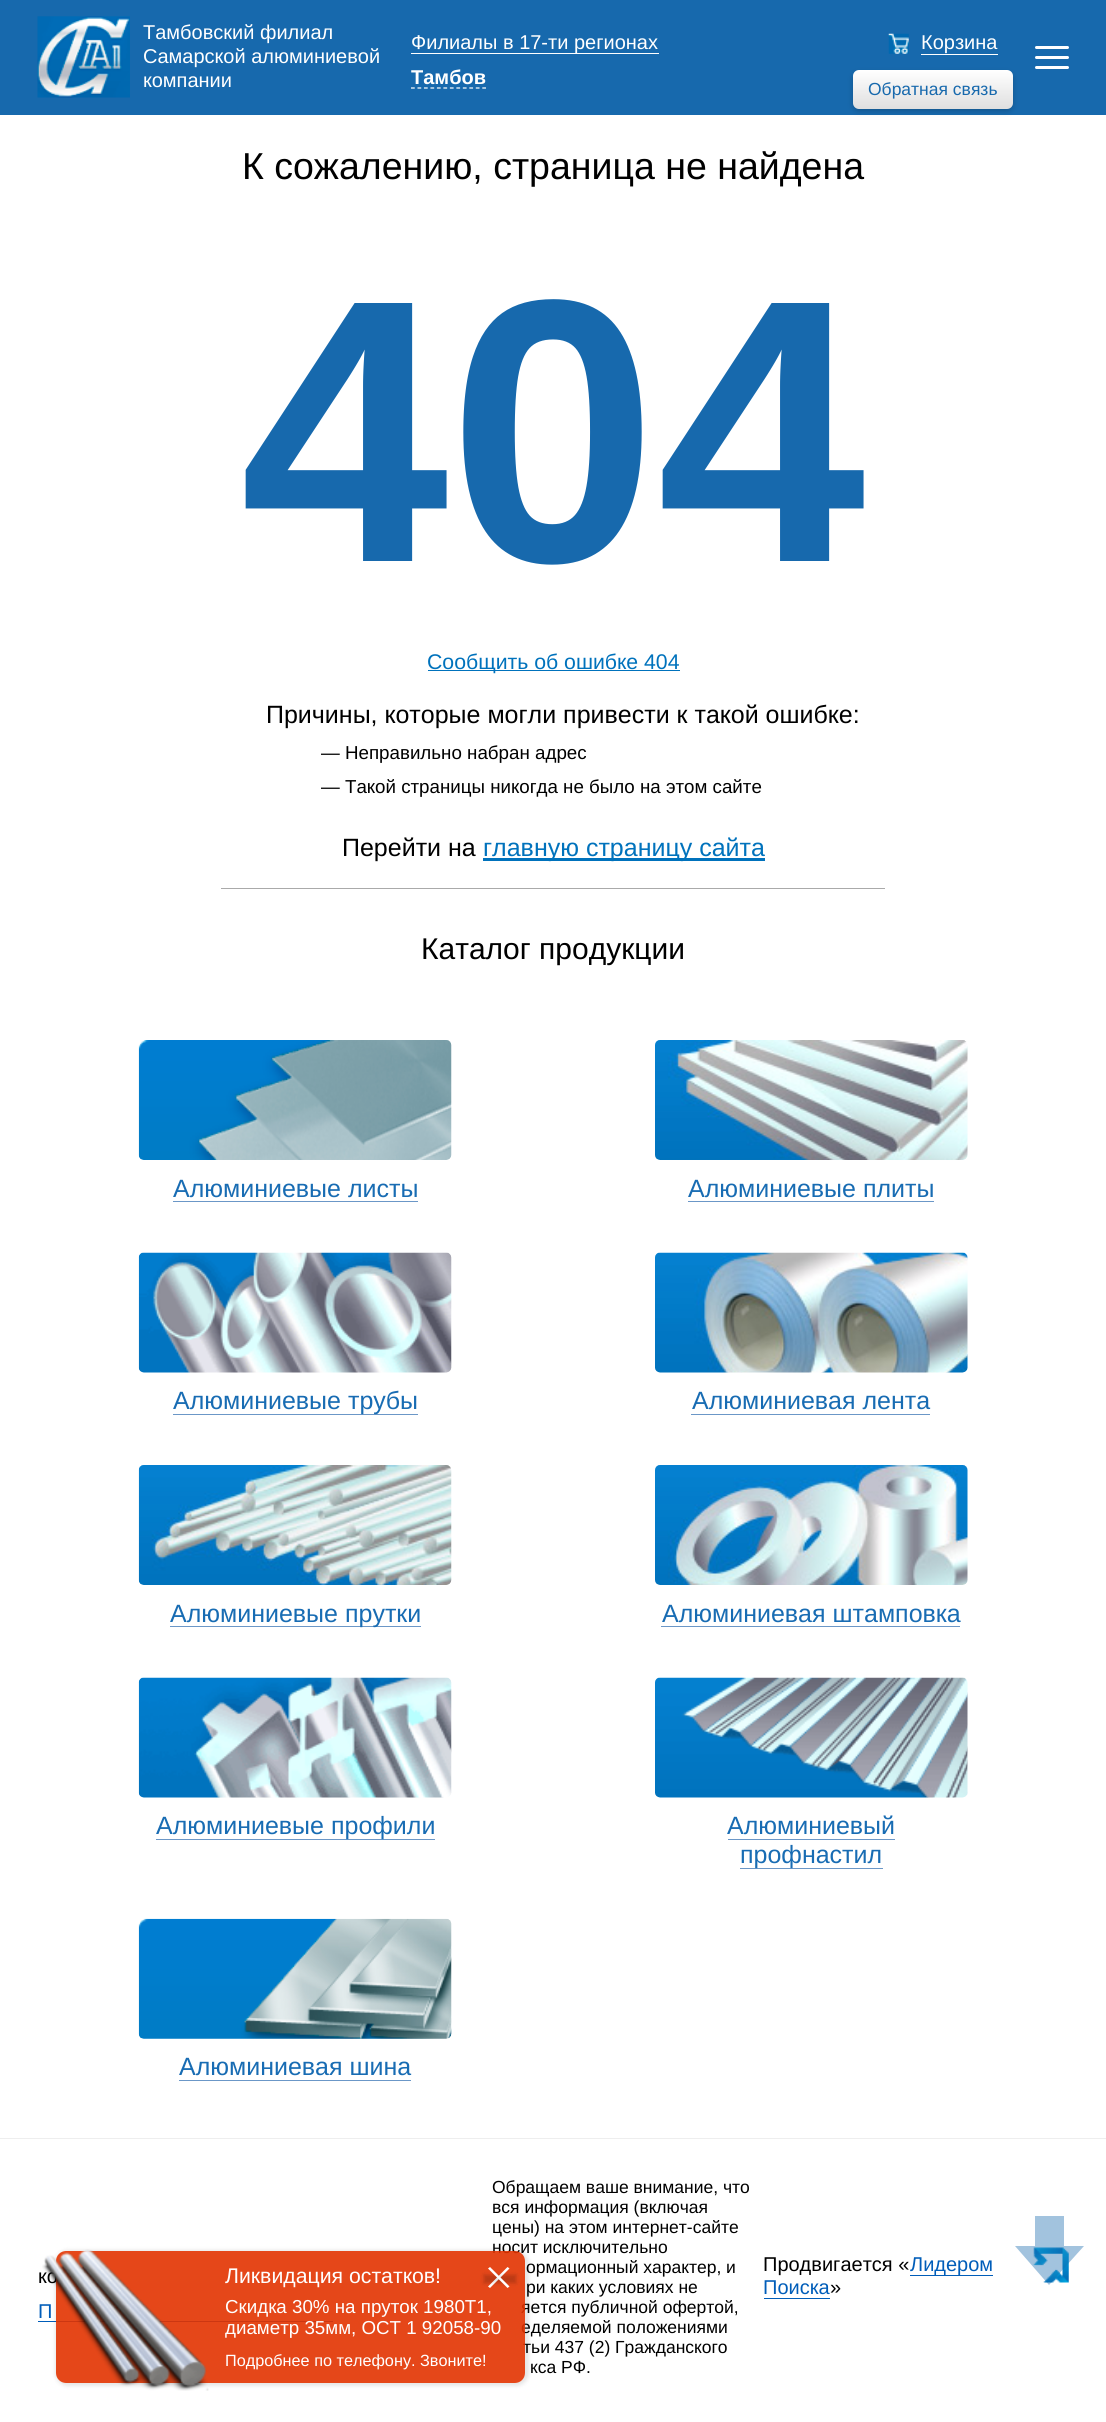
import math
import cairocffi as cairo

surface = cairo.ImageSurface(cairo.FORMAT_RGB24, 1106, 2422)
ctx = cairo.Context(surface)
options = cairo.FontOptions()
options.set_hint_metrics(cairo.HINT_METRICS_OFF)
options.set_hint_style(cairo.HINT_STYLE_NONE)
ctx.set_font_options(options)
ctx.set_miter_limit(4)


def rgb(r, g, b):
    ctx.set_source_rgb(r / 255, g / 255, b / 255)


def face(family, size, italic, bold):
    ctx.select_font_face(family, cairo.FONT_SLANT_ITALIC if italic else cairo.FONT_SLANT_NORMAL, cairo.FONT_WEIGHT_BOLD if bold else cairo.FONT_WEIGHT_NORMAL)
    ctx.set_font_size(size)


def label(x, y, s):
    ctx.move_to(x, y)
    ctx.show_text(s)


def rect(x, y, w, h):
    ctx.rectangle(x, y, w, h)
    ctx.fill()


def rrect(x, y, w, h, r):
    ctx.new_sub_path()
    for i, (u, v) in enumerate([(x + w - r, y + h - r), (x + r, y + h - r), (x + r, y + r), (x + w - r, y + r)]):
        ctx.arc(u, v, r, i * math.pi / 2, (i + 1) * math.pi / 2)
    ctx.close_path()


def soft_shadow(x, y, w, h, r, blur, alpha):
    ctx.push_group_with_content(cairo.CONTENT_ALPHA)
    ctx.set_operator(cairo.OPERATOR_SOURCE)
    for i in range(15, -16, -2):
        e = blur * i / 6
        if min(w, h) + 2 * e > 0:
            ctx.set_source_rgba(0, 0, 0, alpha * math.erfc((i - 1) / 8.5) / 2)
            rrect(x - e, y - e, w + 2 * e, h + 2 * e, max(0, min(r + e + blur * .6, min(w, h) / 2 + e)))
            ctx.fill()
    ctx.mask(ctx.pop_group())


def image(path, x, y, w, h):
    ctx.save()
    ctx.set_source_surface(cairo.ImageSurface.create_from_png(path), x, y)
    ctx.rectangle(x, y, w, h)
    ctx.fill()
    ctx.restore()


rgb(255, 255, 255)
ctx.paint()
rgb(23, 105, 173)
rect(0, 0, 1106, 115)
image('image0.png', 37, 16, 93, 82)
face('Liberation Sans', 20, 0, 0)
rgb(255, 255, 255)
label(143, 39, 'Тамбовский филиал')
label(143, 63, 'Самарской алюминиевой')
label(143, 87, 'компании')
rect(411, 53, 248, 1)
label(411, 49, 'Филиалы в 17-ти регионах')
face('Liberation Sans', 20, 0, 1)
label(411, 84, 'Тамбов')
ctx.new_path()
ctx.move_to(411, 88)
ctx.line_to(486, 88)
ctx.set_line_width(1.2)
ctx.set_dash([3.75, 2.73])
ctx.stroke()
image('image1.png', 888, 33, 21, 21)
rect(921, 54, 77, 1)
face('Liberation Sans', 20, 0, 0)
label(921, 49, 'Корзина')
rrect(1035, 46, 34, 3, 1.5)
ctx.fill()
rrect(1035, 56, 34, 3, 1.5)
ctx.fill()
rrect(1035, 66, 34, 3, 1.5)
ctx.fill()
rgb(0, 0, 0)
soft_shadow(853, 73, 160, 38, 6, 3, 0.2)
gradient = cairo.LinearGradient(933, 70, 933, 109)
gradient.add_color_stop_rgba(0, 1, 1, 1, 1)
gradient.add_color_stop_rgba(1, 0.875, 0.875, 0.875, 1)
ctx.set_source(gradient)
rrect(853, 70, 160, 39, 6)
ctx.fill()
face('Liberation Sans', 17.5, 0, 0)
rgb(23, 105, 173)
label(868, 95, 'Обратная связь')
image('image11.png', 1033, 2247, 36, 36)
ctx.set_source_rgba(0.09, 0.412, 0.678, 0.4)
ctx.new_path()
ctx.move_to(1035, 2216)
ctx.line_to(1035, 2246)
ctx.line_to(1015, 2246)
ctx.line_to(1049, 2285)
ctx.line_to(1084, 2246)
ctx.line_to(1064, 2246)
ctx.line_to(1064, 2216)
ctx.fill()
face('Liberation Sans', 37.5, 0, 0)
rgb(0, 0, 0)
label(242, 179, 'К сожалению, страница не найдена')
face('Liberation Sans', 375, 0, 1)
rgb(23, 105, 173)
label(240, 561, '404')
rgb(0, 114, 188)
rect(428, 670, 252, 1)
face('Liberation Sans', 21.25, 0, 0)
label(427, 669, 'Сообщить об ошибке 404')
face('Liberation Sans', 25, 0, 0)
rgb(0, 0, 0)
label(266, 723, 'Причины, которые могли привести к такой ошибке:')
face('Liberation Sans', 18.75, 0, 0)
label(321, 759, '— Неправильно набран адрес')
label(321, 793, '— Такой страницы никогда не было на этом сайте')
rgb(170, 170, 170)
rect(221, 888, 664, 1)
face('Liberation Sans', 25, 0, 0)
rgb(0, 0, 0)
label(342, 856, 'Перейти на')
rgb(0, 114, 188)
rect(483, 858, 282, 3)
label(483, 856, 'главную страницу сайта')
face('Liberation Sans', 30, 0, 0)
rgb(0, 0, 0)
label(421, 959, 'Каталог продукции')
image('image2.png', 138, 1040, 314, 120)
face('Liberation Sans', 25, 0, 0)
rgb(24, 108, 179)
label(173, 1197, 'Алюминиевые листы')
rgb(107, 151, 199)
rect(173, 1201, 245, 1)
image('image3.png', 655, 1040, 313, 120)
rgb(24, 108, 179)
label(688, 1197, 'Алюминиевые плиты')
rgb(107, 151, 199)
rect(688, 1201, 246, 1)
image('image4.png', 138, 1252, 314, 121)
rect(173, 1414, 245, 1)
rgb(24, 108, 179)
label(173, 1409, 'Алюминиевые трубы')
image('image5.png', 655, 1252, 313, 121)
label(692, 1409, 'Алюминиевая лента')
rgb(107, 151, 199)
rect(691, 1414, 239, 1)
image('image6.png', 138, 1465, 314, 120)
rect(170, 1626, 251, 1)
rgb(24, 108, 179)
label(170, 1622, 'Алюминиевые прутки')
image('image7.png', 655, 1465, 313, 120)
label(662, 1622, 'Алюминиевая штамповка')
rgb(107, 151, 199)
rect(661, 1626, 299, 1)
image('image8.png', 138, 1677, 314, 121)
rect(156, 1839, 279, 1)
rgb(24, 108, 179)
label(156, 1834, 'Алюминиевые профили')
image('image9.png', 655, 1677, 313, 121)
label(727, 1834, 'Алюминиевый')
rgb(107, 151, 199)
rect(728, 1839, 167, 1)
rect(740, 1868, 143, 1)
rgb(24, 108, 179)
label(740, 1863, 'профнастил')
image('image10.png', 138, 1918, 314, 121)
label(179, 2075, 'Алюминиевая шина')
rgb(107, 151, 199)
rect(179, 2080, 232, 1)
rgb(238, 238, 238)
rect(0, 2138, 1106, 1)
face('Liberation Sans', 20, 0, 0)
rgb(0, 0, 0)
label(38, 2283, 'ко')
rgb(0, 93, 185)
label(38, 2318, 'П')
rect(38, 2321, 295, 1)
face('Liberation Sans', 17.5, 0, 0)
rgb(0, 0, 0)
label(492, 2193, 'Обращаем ваше внимание, что')
label(492, 2213, 'вся информация (включая')
label(492, 2233, 'цены) на этом интернет-сайте')
label(492, 2253, 'носит исключительно')
label(526, 2273, 'ормационный характер, и')
label(526, 2293, 'ри каких условиях не')
label(521, 2313, 'яется публичной офертой,')
label(521, 2333, 'еделяемой положениями')
label(523, 2353, 'тьи 437 (2) Гражданского')
label(530, 2373, 'кса РФ.')
face('Liberation Sans', 20, 0, 0)
label(763, 2271, 'Продвигается «')
rgb(0, 93, 185)
rect(910, 2275, 83, 1)
label(910, 2271, 'Лидером')
label(763, 2294, 'Поиска')
rect(764, 2298, 66, 1)
rgb(0, 0, 0)
label(830, 2294, '»')
ctx.save()
ctx.set_fill_rule(cairo.FILL_RULE_EVEN_ODD)
ctx.new_path()
ctx.move_to(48, 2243)
ctx.line_to(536, 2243)
ctx.line_to(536, 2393)
ctx.line_to(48, 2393)
ctx.close_path()
ctx.move_to(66, 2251)
ctx.line_to(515, 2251)
ctx.curve_to(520.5, 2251, 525, 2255.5, 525, 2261)
ctx.line_to(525, 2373)
ctx.curve_to(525, 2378.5, 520.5, 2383, 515, 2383)
ctx.line_to(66, 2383)
ctx.curve_to(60.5, 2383, 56, 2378.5, 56, 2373)
ctx.line_to(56, 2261)
ctx.curve_to(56, 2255.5, 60.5, 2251, 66, 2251)
ctx.close_path()
ctx.clip()
rgb(0, 0, 0)
soft_shadow(55, 2250, 474, 136, 13, 2, 0.1)
ctx.restore()
ctx.set_source_rgba(0.886, 0.2, 0, 0.9)
rrect(56, 2251, 469, 132, 10)
ctx.fill()
image('image12.png', 42, 2249, 167, 142)
rgb(0, 0, 0)
soft_shadow(484, 2275, 32, 8, 0, 2, 0.1)
rgb(255, 255, 255)
ctx.new_path()
ctx.move_to(488, 2286.5)
ctx.line_to(507.5, 2267)
ctx.line_to(509.5, 2268.5)
ctx.line_to(490, 2288)
ctx.close_path()
ctx.fill()
rgb(0, 0, 0)
soft_shadow(484, 2275, 32, 8, 0, 2, 0.1)
rgb(255, 255, 255)
ctx.new_path()
ctx.move_to(490, 2267)
ctx.line_to(509.5, 2286.5)
ctx.line_to(507.5, 2288)
ctx.line_to(488, 2268.5)
ctx.close_path()
ctx.fill()
face('Liberation Sans', 21.25, 0, 0)
label(225, 2283, 'Ликвидация остатков!')
face('Liberation Sans', 18.75, 0, 0)
label(225, 2313, 'Скидка 30% на пруток 1980Т1,')
label(225, 2334, 'диаметр 35мм, ОСТ 1 92058-90')
face('Liberation Sans', 16.25, 0, 0)
label(225, 2366, 'Подробнее по телефону. Звоните!')
surface.write_to_png('render.png')
